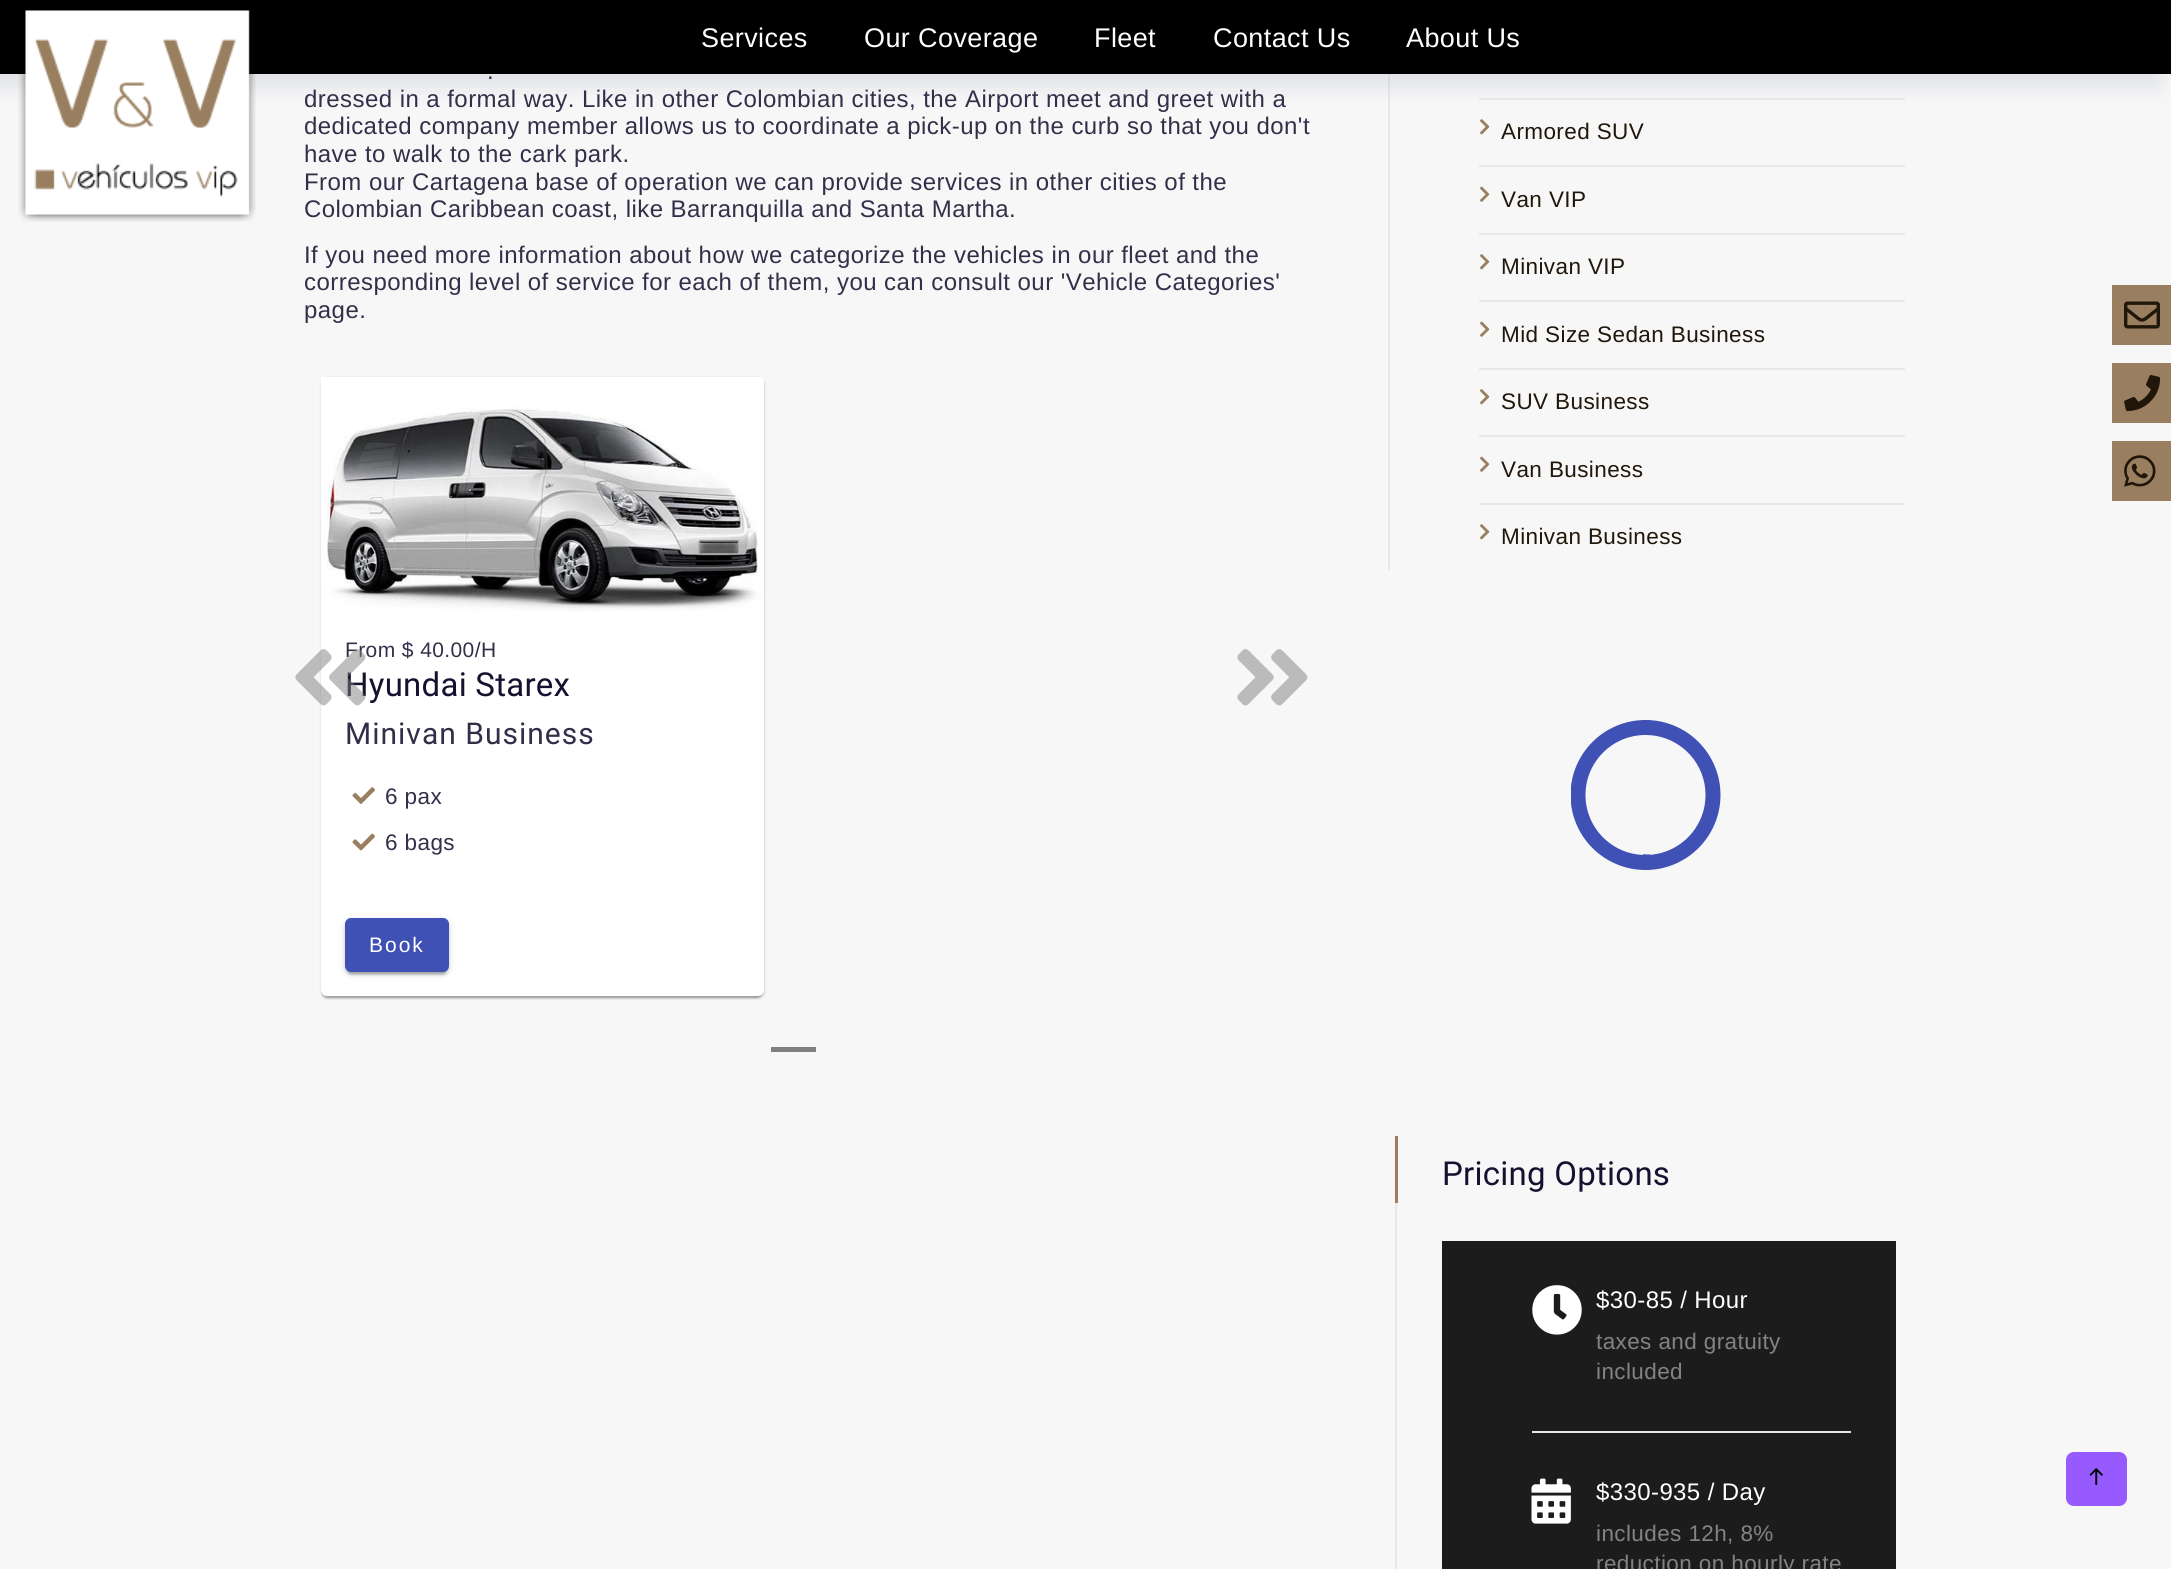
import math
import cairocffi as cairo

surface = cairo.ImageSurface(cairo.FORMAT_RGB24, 2171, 1569)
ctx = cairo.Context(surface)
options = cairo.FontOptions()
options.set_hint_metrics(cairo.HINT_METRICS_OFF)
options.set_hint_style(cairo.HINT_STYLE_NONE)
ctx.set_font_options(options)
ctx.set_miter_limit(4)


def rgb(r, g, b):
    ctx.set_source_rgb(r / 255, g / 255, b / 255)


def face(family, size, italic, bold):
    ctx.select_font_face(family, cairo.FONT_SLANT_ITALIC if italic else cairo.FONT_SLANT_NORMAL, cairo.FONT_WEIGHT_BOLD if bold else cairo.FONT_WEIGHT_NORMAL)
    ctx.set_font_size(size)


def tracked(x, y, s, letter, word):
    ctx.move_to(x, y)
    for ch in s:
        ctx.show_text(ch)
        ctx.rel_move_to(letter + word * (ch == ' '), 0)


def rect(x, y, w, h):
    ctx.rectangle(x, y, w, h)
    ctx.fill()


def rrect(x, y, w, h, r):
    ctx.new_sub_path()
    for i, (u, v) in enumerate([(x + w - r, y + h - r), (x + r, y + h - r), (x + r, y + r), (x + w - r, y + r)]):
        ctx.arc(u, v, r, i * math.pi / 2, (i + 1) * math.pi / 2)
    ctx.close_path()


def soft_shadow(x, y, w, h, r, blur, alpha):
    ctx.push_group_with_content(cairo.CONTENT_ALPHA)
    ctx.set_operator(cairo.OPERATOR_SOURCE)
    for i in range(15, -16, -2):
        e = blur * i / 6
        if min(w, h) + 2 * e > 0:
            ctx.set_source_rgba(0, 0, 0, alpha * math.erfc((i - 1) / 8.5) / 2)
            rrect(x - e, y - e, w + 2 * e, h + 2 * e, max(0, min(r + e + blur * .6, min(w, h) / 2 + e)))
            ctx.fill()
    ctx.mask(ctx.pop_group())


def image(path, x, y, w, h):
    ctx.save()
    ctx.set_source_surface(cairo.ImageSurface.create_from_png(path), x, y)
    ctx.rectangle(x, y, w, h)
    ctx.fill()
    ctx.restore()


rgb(247, 247, 248)
ctx.paint()
rgb(232, 232, 232)
rect(1388, 74, 2, 496)
rect(1479, 98, 426, 2)
rgb(25, 42, 70)
soft_shadow(-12, 12, 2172, 74, 0, 10.5, 0.11)
rgb(0, 0, 0)
rect(0, 0, 2171, 74)
image('image0.png', 18, 10, 238, 212)
rgb(153, 127, 96)
rect(2112, 285, 59, 60)
image('image1.png', 2124, 301, 36, 28)
rect(2112, 363, 59, 60)
image('image2.png', 2124, 375, 37, 36)
rect(2112, 441, 59, 60)
image('image3.png', 2124, 455, 32, 32)
face('Liberation Sans', 27, 0, 0)
rgb(255, 255, 255)
tracked(701, 47, 'Services', 0.4, 0)
tracked(864, 47, 'Our Coverage', 0.4, 0)
tracked(1094, 47, 'Fleet', 0.4, 0)
tracked(1213, 47, 'Contact Us', 0.4, 0)
tracked(1406, 47, 'About Us', 0.4, 0)
face('Liberation Sans', 24, 0, 0)
rgb(52, 46, 73)
tracked(487, 79, '.', 0.45, 0)
tracked(304, 107, 'dressed in a formal way. Like in other Colombian cities, the Airport meet and greet with a', 0.45, 0)
tracked(304, 134, 'dedicated company member allows us to coordinate a pick-up on the curb so that you don\'t', 0.45, 0)
tracked(304, 162, 'have to walk to the cark park.', 0.45, 0)
tracked(304, 190, 'From our Cartagena base of operation we can provide services in other cities of the', 0.45, 0)
tracked(304, 217, 'Colombian Caribbean coast, like Barranquilla and Santa Martha.', 0.45, 0)
tracked(304, 263, 'If you need more information about how we categorize the vehicles in our fleet and the', 0.45, 0)
tracked(304, 290, 'corresponding level of service for each of them, you can consult our \'Vehicle Categories\'', 0.45, 0)
tracked(304, 318, 'page.', 0.45, 0)
ctx.save()
ctx.rectangle(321, 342, 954, 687)
ctx.clip()
rgb(0, 0, 0)
soft_shadow(321, 378, 443, 620, 6, 2, 0.12)
ctx.restore()
rgb(0, 0, 0)
soft_shadow(321, 378, 443, 620, 6, 1, 0.14)
soft_shadow(323, 381, 439, 617, 5, 1, 0.2)
rgb(255, 255, 255)
rrect(321, 377, 443, 619, 6)
ctx.fill()
face('Liberation Sans', 21, 0, 0)
rgb(52, 46, 73)
tracked(345, 657, 'From $ 40.00/H', 0.4, 0)
face('Roboto', 33, 0, 0)
rgb(23, 16, 47)
tracked(345, 696, 'Hyundai Starex', 0.25, 0)
image('image4.png', 295, 649, 71, 57)
image('image5.png', 321, 377, 443, 234)
face('Roboto', 30, 0, 0)
rgb(52, 46, 73)
tracked(345, 744, 'Minivan Business', 1, 0)
image('image6.png', 352, 787, 23, 17)
face('Liberation Sans', 22.5, 0, 0)
tracked(385, 804, '6 pax', 0.4, 0)
image('image7.png', 352, 833, 23, 18)
tracked(385, 850, '6 bags', 0.4, 0)
rgb(0, 0, 0)
soft_shadow(345, 920, 104, 54, 6, 4, 0.12)
soft_shadow(345, 921, 104, 54, 6, 1.5, 0.14)
soft_shadow(348, 926, 98, 48, 3, 1, 0.2)
rgb(63, 81, 181)
rrect(345, 918, 104, 54, 6)
ctx.fill()
face('Liberation Sans', 21, 0, 0)
rgb(255, 255, 255)
tracked(369, 952, 'Book', 2, 0)
image('image8.png', 1237, 649, 71, 57)
rgb(128, 128, 128)
rect(771, 1047, 45, 5)
rgb(232, 232, 232)
rect(1479, 165, 426, 2)
image('image9.png', 1480, 119, 10, 16)
face('Liberation Sans', 22.5, 0, 0)
rgb(32, 22, 9)
tracked(1501, 139, 'Armored SUV', 0.4, 0)
rgb(232, 232, 232)
rect(1479, 233, 426, 2)
image('image10.png', 1480, 186, 10, 16)
rgb(32, 22, 9)
tracked(1501, 207, 'Van VIP', 0.4, 0)
rgb(232, 232, 232)
rect(1479, 300, 426, 2)
image('image9.png', 1480, 254, 10, 16)
rgb(32, 22, 9)
tracked(1501, 274, 'Minivan VIP', 0.4, 0)
rgb(232, 232, 232)
rect(1479, 368, 426, 2)
image('image10.png', 1480, 321, 10, 16)
rgb(32, 22, 9)
tracked(1501, 342, 'Mid Size Sedan Business', 0.4, 0)
rgb(232, 232, 232)
rect(1479, 435, 426, 2)
image('image9.png', 1480, 389, 10, 16)
rgb(32, 22, 9)
tracked(1501, 409, 'SUV Business', 0.4, 0)
rgb(232, 232, 232)
rect(1479, 503, 426, 2)
image('image10.png', 1480, 456, 10, 16)
rgb(32, 22, 9)
tracked(1501, 477, 'Van Business', 0.4, 0)
image('image9.png', 1480, 524, 10, 16)
tracked(1501, 544, 'Minivan Business', 0.4, 0)
ctx.save()
ctx.rectangle(1571, 720, 75, 150)
ctx.clip()
ctx.arc(1645.5, 795, 67.5, 0, 2 * math.pi)
rgb(63, 81, 181)
ctx.set_line_width(15)
ctx.stroke()
ctx.restore()
ctx.save()
ctx.rectangle(1643, 720, 7, 150)
ctx.clip()
ctx.new_path()
ctx.move_to(1649, 862)
ctx.curve_to(1612, 862, 1582, 831.5, 1582, 794)
ctx.curve_to(1582, 757, 1612, 727, 1649, 727)
ctx.curve_to(1686.5, 727, 1717, 757, 1717, 794)
ctx.curve_to(1717, 831.5, 1686.5, 862, 1649, 862)
ctx.close_path()
rgb(63, 81, 181)
ctx.set_line_width(15)
ctx.set_dash([], 212.06)
ctx.stroke()
ctx.restore()
ctx.save()
ctx.rectangle(1646, 720, 75, 150)
ctx.clip()
ctx.arc(1645.5, 795, 67.5, 0, 2 * math.pi)
rgb(63, 81, 181)
ctx.set_line_width(15)
ctx.stroke()
ctx.restore()
rgb(232, 232, 232)
rect(1395, 1203, 2, 366)
rgb(153, 127, 96)
rect(1395, 1136, 3, 67)
face('Roboto', 33, 0, 0)
rgb(23, 16, 47)
tracked(1442, 1185, 'Pricing Options', 0.25, 0)
rgb(28, 28, 28)
rect(1442, 1241, 454, 328)
rgb(232, 232, 232)
rect(1532, 1431, 319, 2)
image('image11.png', 1532, 1285, 50, 50)
face('Liberation Sans', 24, 0, 0)
rgb(255, 255, 255)
tracked(1596, 1308, '$30-85 / Hour', 0.4, 0)
face('Liberation Sans', 22.5, 0, 0)
rgb(131, 131, 131)
tracked(1596, 1349, 'taxes and gratuity', 0.4, 0)
tracked(1596, 1379, 'included', 0.4, 0)
image('image12.png', 1531, 1478, 40, 46)
face('Liberation Sans', 24, 0, 0)
rgb(255, 255, 255)
tracked(1596, 1500, '$330-935 / Day', 0.4, 0)
face('Liberation Sans', 22.5, 0, 0)
rgb(131, 131, 131)
tracked(1596, 1541, 'includes 12h, 8%', 0.4, 0)
tracked(1596, 1571, 'reduction on hourly rate', 0.4, 0)
rgb(151, 90, 255)
rrect(2067, 1453, 59, 52, 7)
ctx.fill_preserve()
ctx.stroke()
image('image13.png', 2089, 1468, 14, 17)
surface.write_to_png('render.png')
